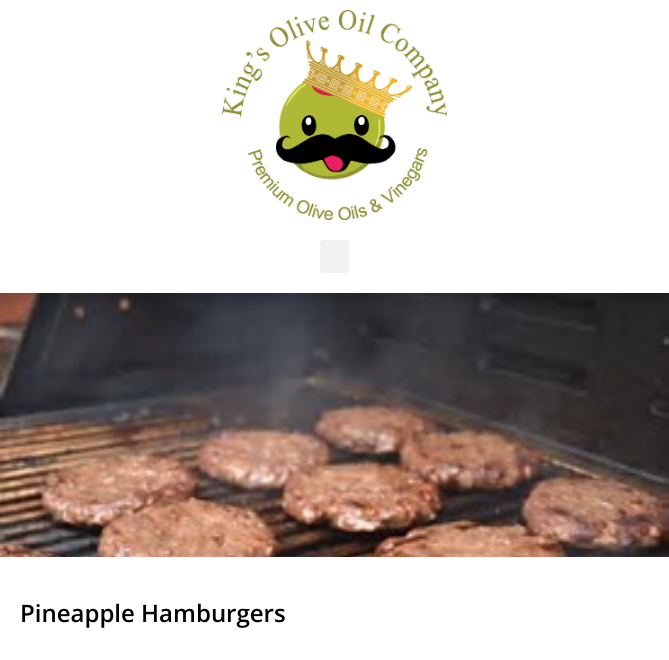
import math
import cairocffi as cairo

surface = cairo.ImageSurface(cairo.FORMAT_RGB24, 669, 660)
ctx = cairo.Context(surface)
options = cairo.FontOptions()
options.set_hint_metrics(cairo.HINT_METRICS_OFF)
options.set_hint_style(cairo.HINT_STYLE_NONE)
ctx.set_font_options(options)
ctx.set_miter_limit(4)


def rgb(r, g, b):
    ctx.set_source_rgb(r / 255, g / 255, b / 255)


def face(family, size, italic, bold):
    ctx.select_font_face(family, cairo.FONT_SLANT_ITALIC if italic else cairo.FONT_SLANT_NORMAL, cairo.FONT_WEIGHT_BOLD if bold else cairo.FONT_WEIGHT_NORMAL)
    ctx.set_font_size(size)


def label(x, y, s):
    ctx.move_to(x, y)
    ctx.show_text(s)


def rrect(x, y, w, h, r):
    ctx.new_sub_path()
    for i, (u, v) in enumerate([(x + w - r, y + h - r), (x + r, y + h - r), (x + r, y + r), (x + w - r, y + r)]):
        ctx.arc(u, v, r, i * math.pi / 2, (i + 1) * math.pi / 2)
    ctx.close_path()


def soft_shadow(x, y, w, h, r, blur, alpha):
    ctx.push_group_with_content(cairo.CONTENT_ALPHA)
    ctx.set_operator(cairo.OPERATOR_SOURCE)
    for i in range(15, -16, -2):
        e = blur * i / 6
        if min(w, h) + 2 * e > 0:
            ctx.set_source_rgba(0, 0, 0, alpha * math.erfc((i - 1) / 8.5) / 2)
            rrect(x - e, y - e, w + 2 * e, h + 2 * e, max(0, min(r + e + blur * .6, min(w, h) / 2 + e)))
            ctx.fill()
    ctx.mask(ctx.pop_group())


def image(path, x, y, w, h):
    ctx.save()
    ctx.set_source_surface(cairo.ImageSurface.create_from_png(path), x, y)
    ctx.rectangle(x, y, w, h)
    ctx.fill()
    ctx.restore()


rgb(255, 255, 255)
ctx.paint()
image('image0.png', 222, 10, 225, 210)
image('image1.png', 0, 293, 669, 264)
ctx.save()
ctx.rectangle(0, 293, 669, 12)
ctx.clip()
rgb(0, 0, 0)
soft_shadow(0, 236, 669, 63, 0, 5, 0.17)
ctx.restore()
rgb(242, 242, 242)
rrect(320, 240, 29, 33, 3)
ctx.fill()
face('Open Sans SemiBold', 24, 0, 0)
rgb(0, 0, 0)
label(20, 622, 'Pineapple Hamburgers')
surface.write_to_png('render.png')
